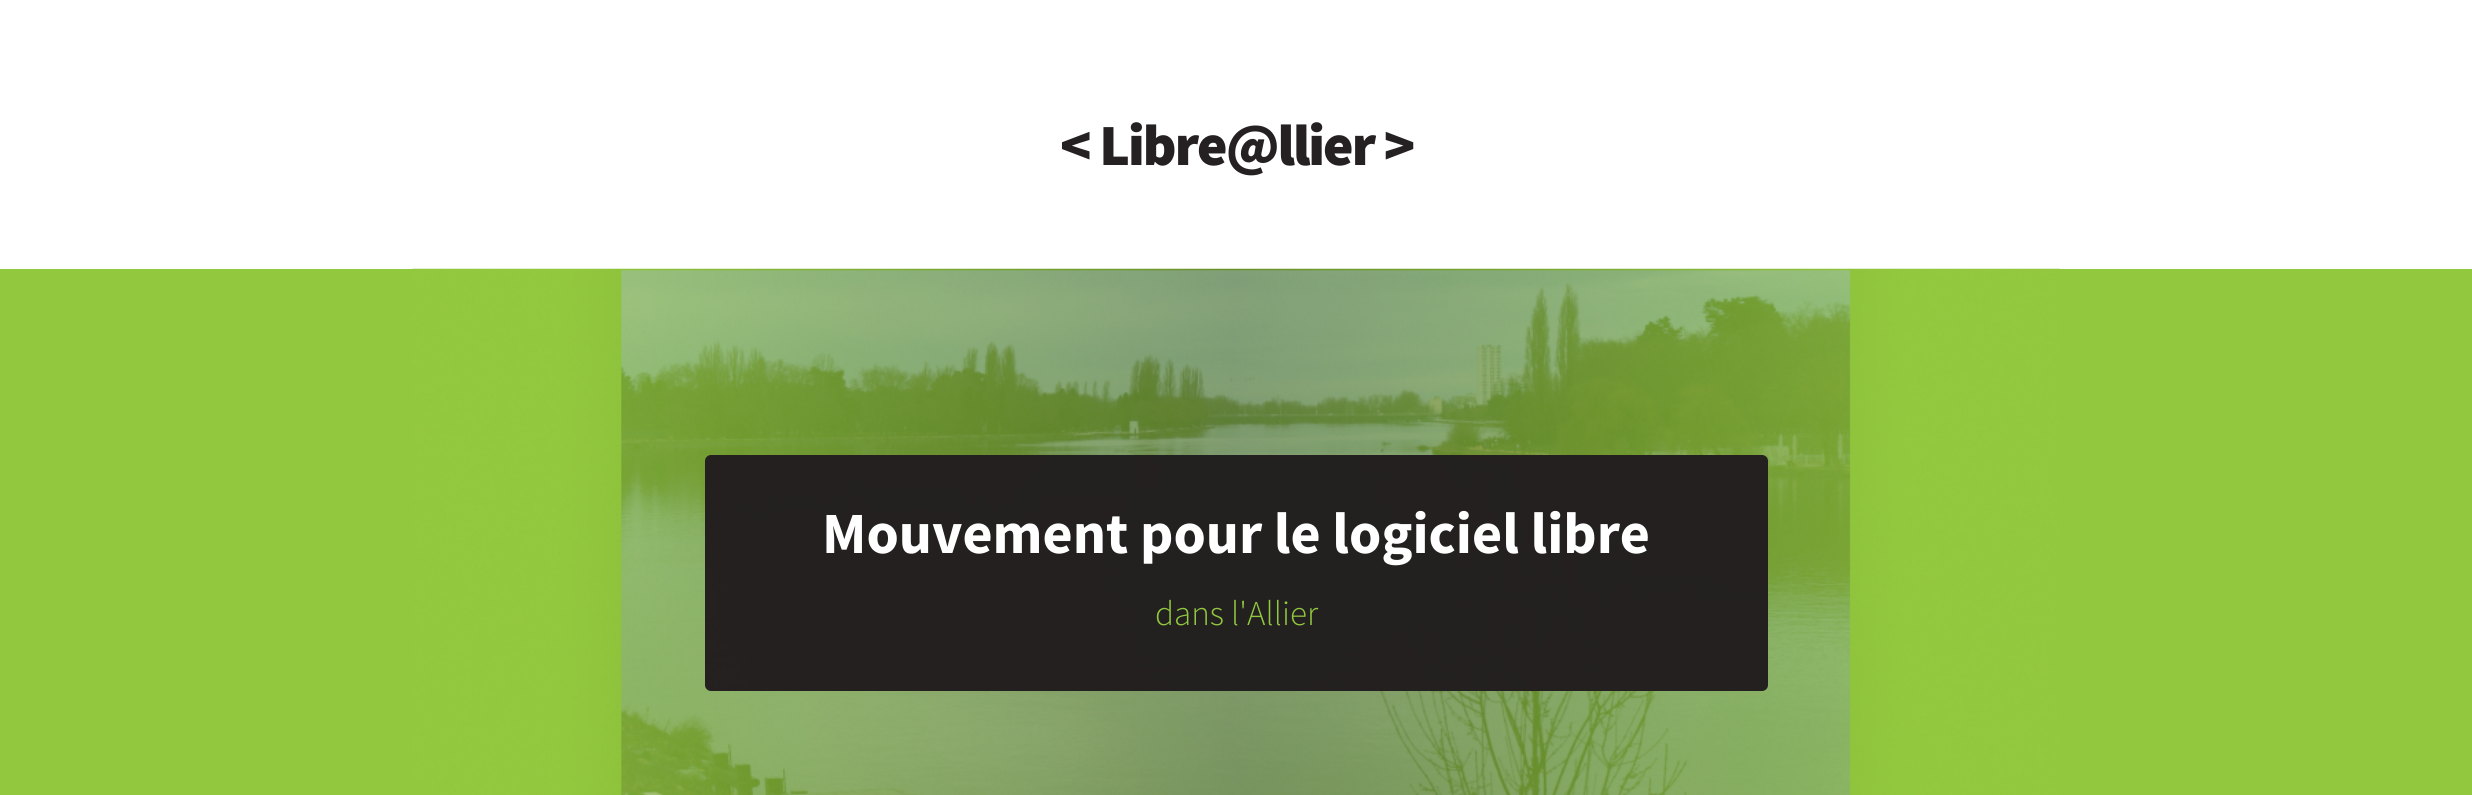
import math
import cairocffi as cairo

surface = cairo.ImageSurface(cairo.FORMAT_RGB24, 2472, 795)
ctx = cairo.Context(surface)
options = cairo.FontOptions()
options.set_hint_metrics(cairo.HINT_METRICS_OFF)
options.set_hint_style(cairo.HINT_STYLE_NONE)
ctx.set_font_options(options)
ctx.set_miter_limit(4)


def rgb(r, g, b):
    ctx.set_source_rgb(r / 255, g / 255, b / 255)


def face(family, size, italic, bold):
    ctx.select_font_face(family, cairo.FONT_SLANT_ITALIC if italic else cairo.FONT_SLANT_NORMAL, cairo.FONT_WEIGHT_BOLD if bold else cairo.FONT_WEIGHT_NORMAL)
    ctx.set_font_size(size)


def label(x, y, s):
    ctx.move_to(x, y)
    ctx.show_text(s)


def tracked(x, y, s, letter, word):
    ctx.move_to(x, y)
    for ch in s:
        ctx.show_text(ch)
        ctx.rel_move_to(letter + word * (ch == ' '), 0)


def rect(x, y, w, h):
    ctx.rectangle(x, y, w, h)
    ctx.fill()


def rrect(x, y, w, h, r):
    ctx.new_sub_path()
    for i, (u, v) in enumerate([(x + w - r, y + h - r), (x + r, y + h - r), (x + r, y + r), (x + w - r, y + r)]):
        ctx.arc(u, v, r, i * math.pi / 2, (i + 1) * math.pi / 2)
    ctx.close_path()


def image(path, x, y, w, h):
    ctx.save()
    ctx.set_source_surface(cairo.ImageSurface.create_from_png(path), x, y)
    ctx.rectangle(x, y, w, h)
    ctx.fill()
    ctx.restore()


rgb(255, 255, 255)
ctx.paint()
face('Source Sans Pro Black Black', 58.3, 0, 0)
rgb(37, 33, 34)
tracked(1060, 165, '< Libre@llier >', -2, 0)
rgb(146, 200, 62)
rect(0, 269, 2472, 526)
image('image0.png', 412, 268, 1648, 527)
ctx.set_source_rgba(0.133, 0.118, 0.122, 0.98)
rrect(705, 455, 1063, 236, 6)
ctx.fill()
face('Source Sans Pro', 58.3, 0, 1)
rgb(255, 255, 255)
label(822, 553, 'Mouvement pour le logiciel libre')
face('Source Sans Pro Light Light', 35, 0, 0)
rgb(146, 200, 62)
label(1155, 625, 'dans l\'Allier')
surface.write_to_png('render.png')
